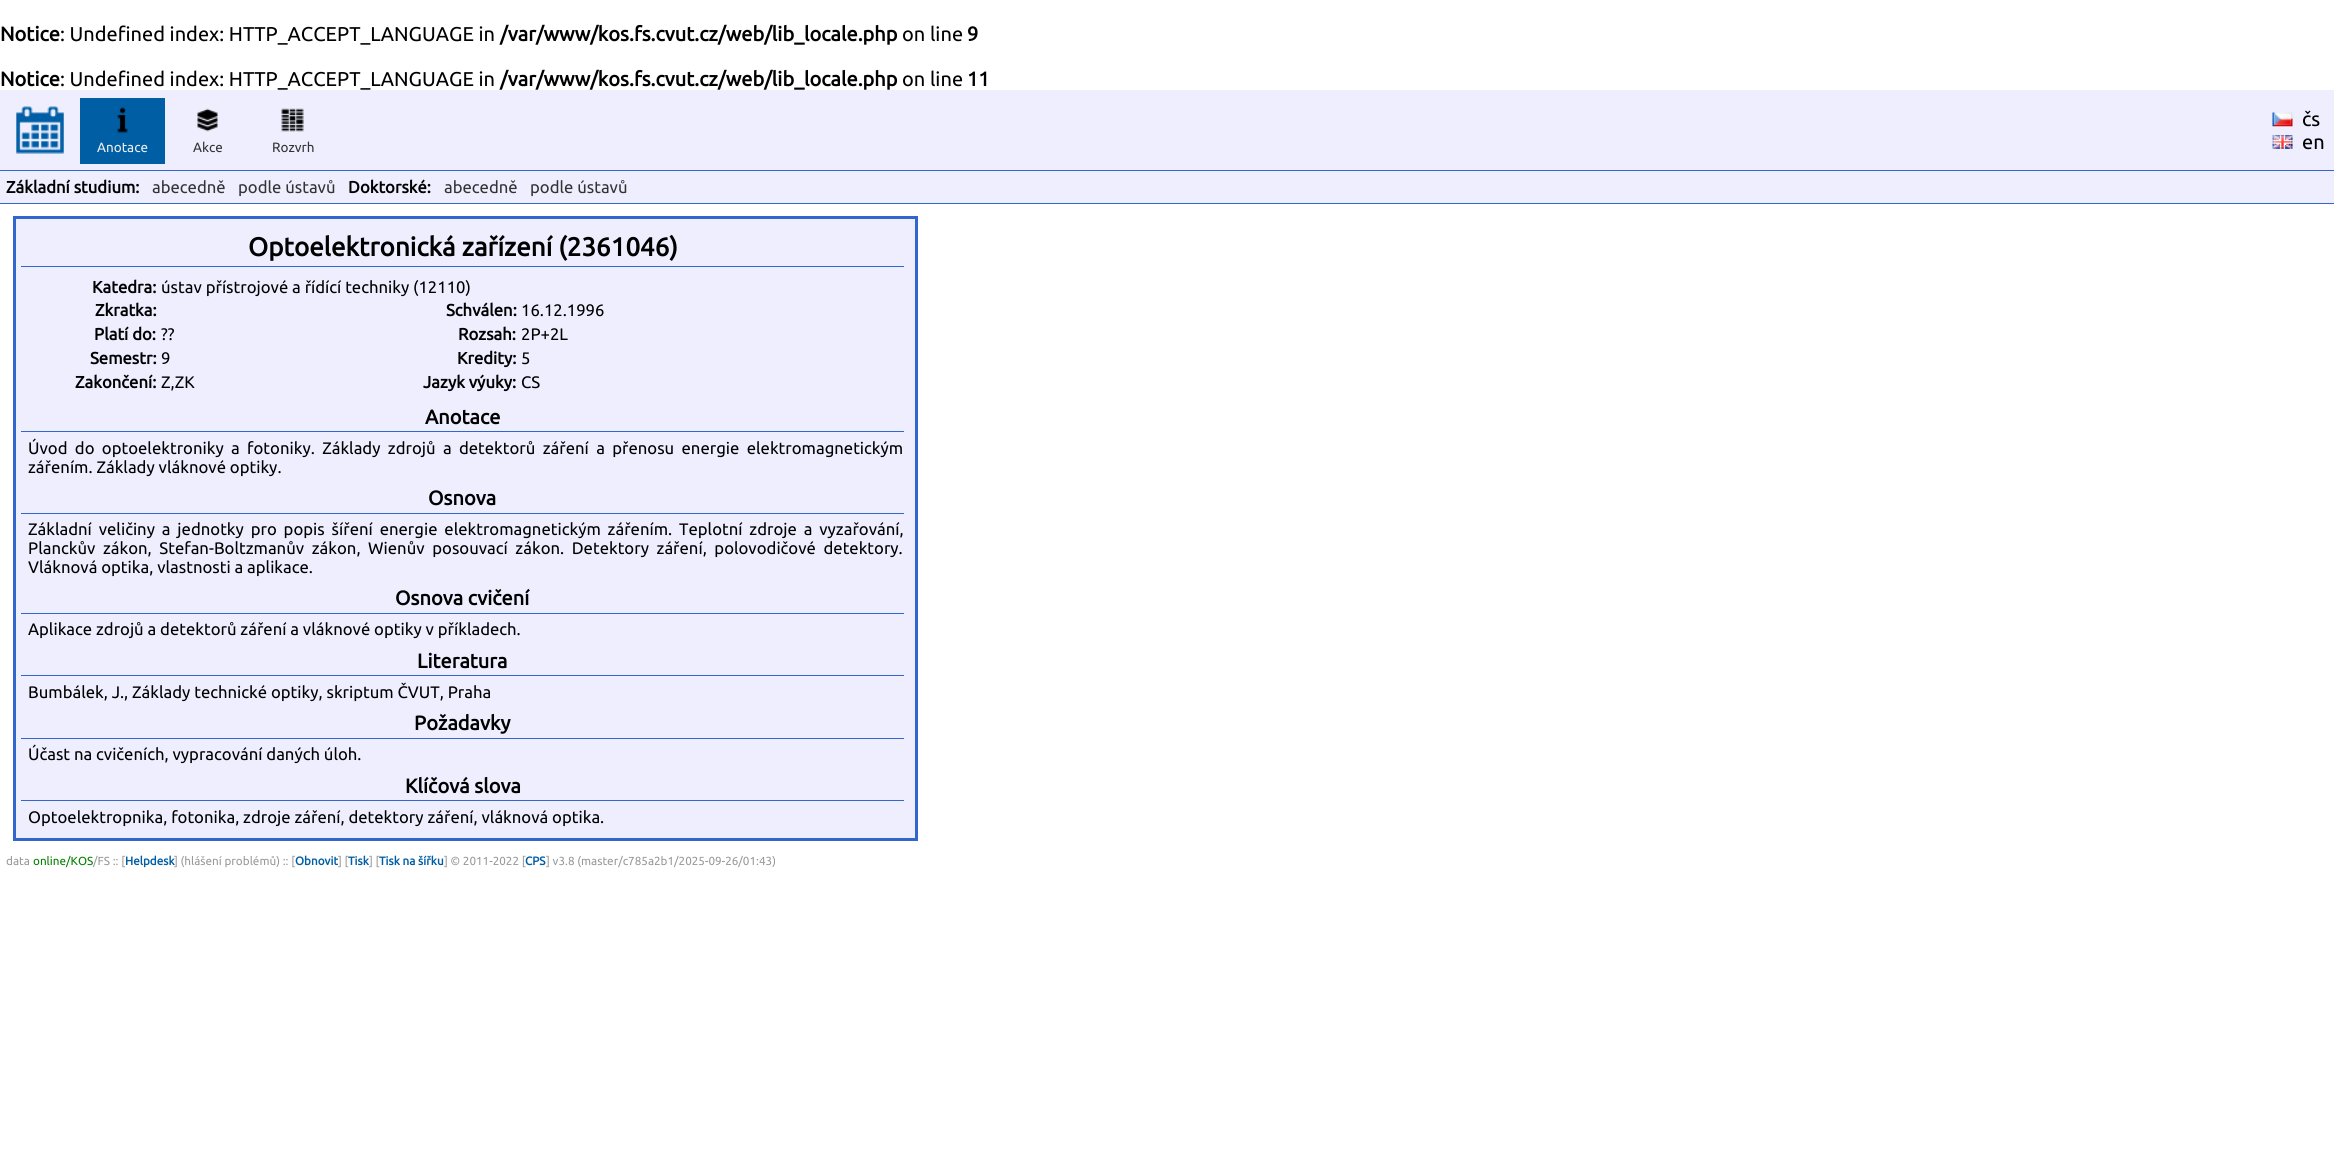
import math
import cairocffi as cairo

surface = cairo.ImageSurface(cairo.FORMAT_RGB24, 2334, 1169)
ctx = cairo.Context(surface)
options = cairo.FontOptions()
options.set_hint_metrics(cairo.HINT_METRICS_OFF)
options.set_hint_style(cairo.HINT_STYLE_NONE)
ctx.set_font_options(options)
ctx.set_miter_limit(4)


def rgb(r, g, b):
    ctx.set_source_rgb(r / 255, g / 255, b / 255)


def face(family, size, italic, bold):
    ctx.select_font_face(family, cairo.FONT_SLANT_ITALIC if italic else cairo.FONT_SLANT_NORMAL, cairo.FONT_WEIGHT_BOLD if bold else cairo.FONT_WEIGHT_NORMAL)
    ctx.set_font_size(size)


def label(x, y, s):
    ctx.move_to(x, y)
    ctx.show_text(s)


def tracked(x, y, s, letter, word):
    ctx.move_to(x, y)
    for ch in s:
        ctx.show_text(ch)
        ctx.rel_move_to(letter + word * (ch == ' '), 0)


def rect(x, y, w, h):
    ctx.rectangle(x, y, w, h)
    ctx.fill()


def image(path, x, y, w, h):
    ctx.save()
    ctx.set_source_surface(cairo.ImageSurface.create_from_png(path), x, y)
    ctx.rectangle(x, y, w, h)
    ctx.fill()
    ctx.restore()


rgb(255, 255, 255)
ctx.paint()
face('Ubuntu', 20, 0, 1)
rgb(0, 0, 0)
label(0, 41, 'Notice')
face('Ubuntu', 20, 0, 0)
label(60, 41, ': Undefined index: HTTP_ACCEPT_LANGUAGE in')
face('Ubuntu', 20, 0, 1)
label(500, 41, '/var/www/kos.fs.cvut.cz/web/lib_locale.php')
face('Ubuntu', 20, 0, 0)
label(902, 41, 'on line')
face('Ubuntu', 20, 0, 1)
label(967, 41, '9')
label(0, 86, 'Notice')
face('Ubuntu', 20, 0, 0)
label(60, 86, ': Undefined index: HTTP_ACCEPT_LANGUAGE in')
face('Ubuntu', 20, 0, 1)
label(500, 86, '/var/www/kos.fs.cvut.cz/web/lib_locale.php')
face('Ubuntu', 20, 0, 0)
label(902, 86, 'on line')
face('Ubuntu', 20, 0, 1)
label(967, 86, '11')
rgb(238, 238, 255)
rect(0, 90, 2334, 80)
rgb(51, 102, 204)
rect(0, 170, 2334, 1)
image('image0.png', 16, 106, 48, 48)
rgb(0, 94, 165)
rect(80, 98, 85, 66)
image('image1.png', 117, 107, 11, 26)
face('Ubuntu', 13.5, 0, 0)
rgb(238, 238, 238)
label(97, 152, 'Anotace')
image('image2.png', 197, 108, 21, 24)
rgb(51, 51, 51)
label(193, 152, 'Akce')
image('image3.png', 281, 108, 23, 24)
label(272, 152, 'Rozvrh')
image('image4.png', 2272, 112, 21, 15)
face('Ubuntu', 20, 0, 0)
rgb(0, 0, 0)
label(2302, 126, 'čs')
image('image5.png', 2272, 135, 21, 14)
label(2302, 149, 'en')
rgb(238, 238, 255)
rect(0, 171, 2334, 32)
rgb(51, 102, 204)
rect(0, 203, 2334, 1)
face('Ubuntu', 16.67, 0, 1)
rgb(0, 0, 0)
label(6, 193, 'Základní studium:')
face('Ubuntu', 16.67, 0, 0)
rgb(51, 51, 51)
label(152, 193, 'abecedně')
label(238, 193, 'podle ústavů')
face('Ubuntu', 16.67, 0, 1)
rgb(0, 0, 0)
label(348, 193, 'Doktorské:')
face('Ubuntu', 16.67, 0, 0)
rgb(51, 51, 51)
label(444, 193, 'abecedně')
label(530, 193, 'podle ústavů')
rgb(238, 238, 255)
ctx.rectangle(14.5, 217.5, 902, 622)
ctx.fill_preserve()
rgb(51, 102, 204)
ctx.set_line_width(3)
ctx.stroke()
rect(21, 266, 883, 1)
face('Ubuntu', 26, 0, 1)
rgb(0, 0, 0)
label(248, 256, 'Optoelektronická zařízení (2361046)')
face('Ubuntu', 16.67, 0, 1)
label(92, 293, 'Katedra:')
face('Ubuntu', 16.67, 0, 0)
label(161, 293, 'ústav přístrojové a řídící techniky (12110)')
face('Ubuntu', 16.67, 0, 1)
label(95, 316, 'Zkratka:')
label(446, 316, 'Schválen:')
face('Ubuntu', 16.67, 0, 0)
label(521, 316, '16.12.1996')
face('Ubuntu', 16.67, 0, 1)
label(94, 340, 'Platí do:')
face('Ubuntu', 16.67, 0, 0)
label(161, 340, '??')
face('Ubuntu', 16.67, 0, 1)
label(458, 340, 'Rozsah:')
face('Ubuntu', 16.67, 0, 0)
label(521, 340, '2P+2L')
face('Ubuntu', 16.67, 0, 1)
label(90, 364, 'Semestr:')
face('Ubuntu', 16.67, 0, 0)
label(161, 364, '9')
face('Ubuntu', 16.67, 0, 1)
label(457, 364, 'Kredity:')
face('Ubuntu', 16.67, 0, 0)
label(521, 364, '5')
face('Ubuntu', 16.67, 0, 1)
label(75, 388, 'Zakončení:')
face('Ubuntu', 16.67, 0, 0)
label(161, 388, 'Z,ZK')
face('Ubuntu', 16.67, 0, 1)
label(423, 388, 'Jazyk výuky:')
face('Ubuntu', 16.67, 0, 0)
label(521, 388, 'CS')
rgb(51, 102, 204)
rect(21, 431, 883, 1)
face('Ubuntu', 20, 0, 1)
rgb(0, 0, 0)
label(425, 424, 'Anotace')
face('Ubuntu', 16.67, 0, 0)
tracked(28, 454, 'Úvod do optoelektroniky a fotoniky. Základy zdrojů a detektorů záření a přenosu energie elektromagnetickým', 0, 3.5)
label(28, 473, 'zářením. Základy vláknové optiky.')
rgb(51, 102, 204)
rect(21, 513, 883, 1)
face('Ubuntu', 20, 0, 1)
rgb(0, 0, 0)
label(428, 505, 'Osnova')
face('Ubuntu', 16.67, 0, 0)
tracked(28, 535, 'Základní veličiny a jednotky pro popis šíření energie elektromagnetickým zářením. Teplotní zdroje a vyzařování,', 0, 3)
tracked(28, 554, 'Planckův zákon, Stefan-Boltzmanův zákon, Wienův posouvací zákon. Detektory záření, polovodičové detektory.', 0, 3.75)
label(28, 573, 'Vláknová optika, vlastnosti a aplikace.')
rgb(51, 102, 204)
rect(21, 613, 883, 1)
face('Ubuntu', 20, 0, 1)
rgb(0, 0, 0)
label(395, 605, 'Osnova cvičení')
face('Ubuntu', 16.67, 0, 0)
label(28, 635, 'Aplikace zdrojů a detektorů záření a vláknové optiky v příkladech.')
rgb(51, 102, 204)
rect(21, 675, 883, 1)
face('Ubuntu', 20, 0, 1)
rgb(0, 0, 0)
label(417, 668, 'Literatura')
face('Ubuntu', 16.67, 0, 0)
label(28, 698, 'Bumbálek, J., Základy technické optiky, skriptum ČVUT, Praha')
rgb(51, 102, 204)
rect(21, 738, 883, 1)
face('Ubuntu', 20, 0, 1)
rgb(0, 0, 0)
label(414, 730, 'Požadavky')
face('Ubuntu', 16.67, 0, 0)
label(28, 760, 'Účast na cvičeních, vypracování daných úloh.')
rgb(51, 102, 204)
rect(21, 800, 883, 1)
face('Ubuntu', 20, 0, 1)
rgb(0, 0, 0)
label(405, 793, 'Klíčová slova')
face('Ubuntu', 16.67, 0, 0)
label(28, 823, 'Optoelektropnika, fotonika, zdroje záření, detektory záření, vláknová optika.')
face('Ubuntu', 11.7, 0, 0)
rgb(153, 153, 153)
label(6, 865, 'data')
rgb(0, 128, 0)
label(33, 865, 'online/KOS')
rgb(153, 153, 153)
label(93, 865, '/FS :: [')
face('Ubuntu', 11.7, 0, 1)
rgb(0, 94, 165)
label(125, 865, 'Helpdesk')
face('Ubuntu', 11.7, 0, 0)
rgb(153, 153, 153)
label(174, 865, '] (hlášení problémů) :: [')
face('Ubuntu', 11.7, 0, 1)
rgb(0, 94, 165)
label(295, 865, 'Obnovit')
face('Ubuntu', 11.7, 0, 0)
rgb(153, 153, 153)
label(338, 865, '] [')
face('Ubuntu', 11.7, 0, 1)
rgb(0, 94, 165)
label(348, 865, 'Tisk')
face('Ubuntu', 11.7, 0, 0)
rgb(153, 153, 153)
label(369, 865, '] [')
face('Ubuntu', 11.7, 0, 1)
rgb(0, 94, 165)
label(379, 865, 'Tisk na šířku')
face('Ubuntu', 11.7, 0, 0)
rgb(153, 153, 153)
label(444, 865, '] © 2011-2022 [')
face('Ubuntu', 11.7, 0, 1)
rgb(0, 94, 165)
label(525, 865, 'CPS')
face('Ubuntu', 11.7, 0, 0)
rgb(153, 153, 153)
label(546, 865, '] v3.8 (master/c785a2b1/2025-09-26/01:43)')
surface.write_to_png('render.png')
